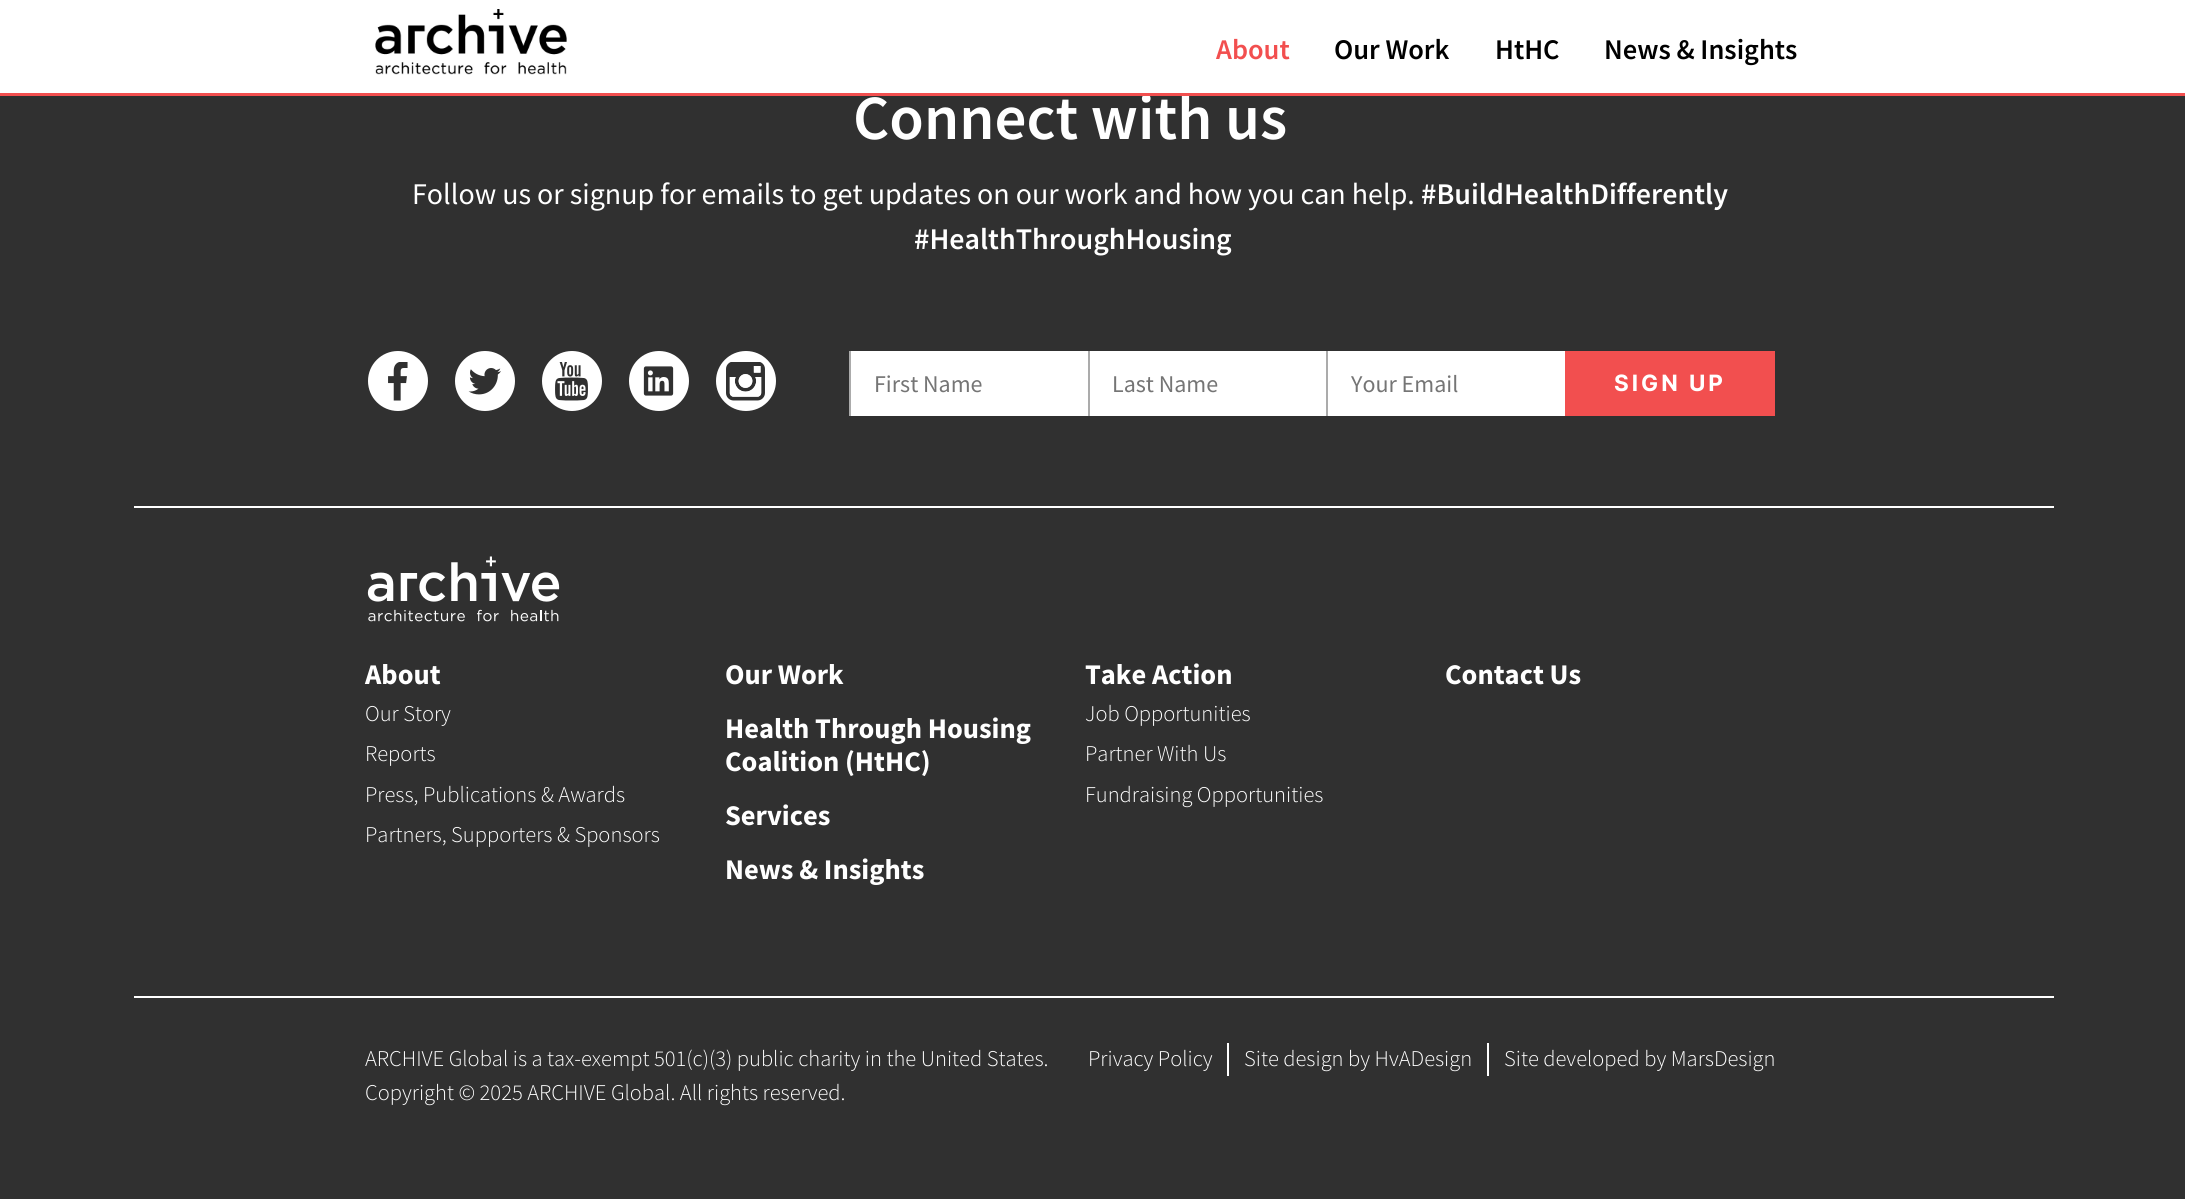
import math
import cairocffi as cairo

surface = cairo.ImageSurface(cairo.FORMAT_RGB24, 2185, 1199)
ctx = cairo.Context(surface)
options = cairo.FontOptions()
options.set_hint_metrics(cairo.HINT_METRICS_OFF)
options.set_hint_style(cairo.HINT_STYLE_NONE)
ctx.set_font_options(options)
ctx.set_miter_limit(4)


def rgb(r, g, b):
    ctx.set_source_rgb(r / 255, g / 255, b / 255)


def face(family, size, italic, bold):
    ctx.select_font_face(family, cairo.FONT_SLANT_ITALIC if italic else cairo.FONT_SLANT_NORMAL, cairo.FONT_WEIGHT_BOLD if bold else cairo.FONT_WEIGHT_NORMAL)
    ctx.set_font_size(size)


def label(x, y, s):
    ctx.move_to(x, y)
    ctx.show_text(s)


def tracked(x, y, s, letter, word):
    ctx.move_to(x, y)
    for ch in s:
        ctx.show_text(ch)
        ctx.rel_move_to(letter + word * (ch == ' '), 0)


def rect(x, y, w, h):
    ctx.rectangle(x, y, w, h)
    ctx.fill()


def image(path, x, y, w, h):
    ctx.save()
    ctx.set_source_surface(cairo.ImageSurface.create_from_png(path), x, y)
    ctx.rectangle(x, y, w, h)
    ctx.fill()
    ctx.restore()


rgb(48, 48, 48)
ctx.paint()
rgb(255, 255, 255)
rect(0, 0, 2185, 93)
face('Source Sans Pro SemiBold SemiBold', 63, 0, 0)
label(853, 139, 'Connect with us')
rgb(242, 79, 79)
rect(0, 93, 2185, 3)
image('image0.png', 375, 9, 192, 66)
face('Source Sans Pro SemiBold SemiBold', 28.5, 0, 0)
label(1216, 59, 'About')
rgb(0, 0, 0)
label(1334, 59, 'Our Work')
label(1495, 59, 'HtHC')
label(1604, 59, 'News & Insights')
face('Source Sans Pro', 30, 0, 0)
rgb(255, 255, 255)
label(412, 204, 'Follow us or signup for emails to get updates on our work and how you can help.')
face('Source Sans Pro SemiBold SemiBold', 30, 0, 0)
label(1421, 204, '#BuildHealthDifferently')
label(914, 249, '#HealthThroughHousing')
ctx.new_path()
ctx.arc(398, 381, 30, 0, 2 * math.pi)
ctx.fill()
image('image1.png', 388, 362, 20, 39)
ctx.arc(485, 381, 30, 0, 2 * math.pi)
ctx.fill()
image('image2.png', 468, 368, 33, 27)
ctx.arc(572, 381, 30, 0, 2 * math.pi)
ctx.fill()
image('image3.png', 555, 362, 33, 39)
ctx.arc(659, 381, 30, 0, 2 * math.pi)
ctx.fill()
image('image4.png', 643, 366, 31, 30)
ctx.arc(746, 381, 30, 0, 2 * math.pi)
ctx.fill()
image('image5.png', 726, 362, 39, 39)
rect(851, 351, 237, 65)
rgb(171, 171, 171)
rect(849, 351, 2, 65)
face('Source Sans Pro', 24, 0, 0)
rgb(117, 117, 117)
label(874, 392, 'First Name')
rgb(255, 255, 255)
rect(1090, 351, 236, 65)
rgb(171, 171, 171)
rect(1088, 351, 2, 65)
rgb(117, 117, 117)
label(1112, 392, 'Last Name')
rgb(255, 255, 255)
rect(1328, 351, 237, 65)
rgb(171, 171, 171)
rect(1326, 351, 2, 65)
rgb(117, 117, 117)
label(1351, 392, 'Your Email')
rgb(242, 79, 79)
rect(1565, 351, 210, 65)
face('Inter', 22.5, 0, 1)
rgb(255, 255, 255)
tracked(1614, 391, 'SIGN UP', 3, 0)
rect(134, 506, 1920, 2)
image('image6.png', 367, 556, 193, 66)
face('Source Sans Pro', 28.5, 0, 1)
label(365, 684, 'About')
face('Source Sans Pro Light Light', 22.5, 0, 0)
label(365, 721, 'Our Story')
label(365, 761, 'Reports')
label(365, 802, 'Press, Publications & Awards')
label(365, 842, 'Partners, Supporters & Sponsors')
face('Source Sans Pro', 28.5, 0, 1)
label(725, 684, 'Our Work')
label(725, 738, 'Health Through Housing')
label(725, 771, 'Coalition (HtHC)')
label(725, 825, 'Services')
label(725, 879, 'News & Insights')
label(1085, 684, 'Take Action')
face('Source Sans Pro Light Light', 22.5, 0, 0)
label(1085, 721, 'Job Opportunities')
label(1085, 761, 'Partner With Us')
label(1085, 802, 'Fundraising Opportunities')
face('Source Sans Pro', 28.5, 0, 1)
label(1445, 684, 'Contact Us')
rect(134, 996, 1920, 2)
face('Source Sans Pro Light Light', 22.5, 0, 0)
label(365, 1066, 'ARCHIVE Global is a tax-exempt 501(c)(3) public charity in the United States.')
label(365, 1100, 'Copyright © 2025 ARCHIVE Global. All rights reserved.')
label(1088, 1066, 'Privacy Policy')
rect(1227, 1043, 2, 33)
label(1244, 1066, 'Site design by HvADesign')
rect(1487, 1043, 2, 33)
label(1504, 1066, 'Site developed by MarsDesign')
surface.write_to_png('render.png')
